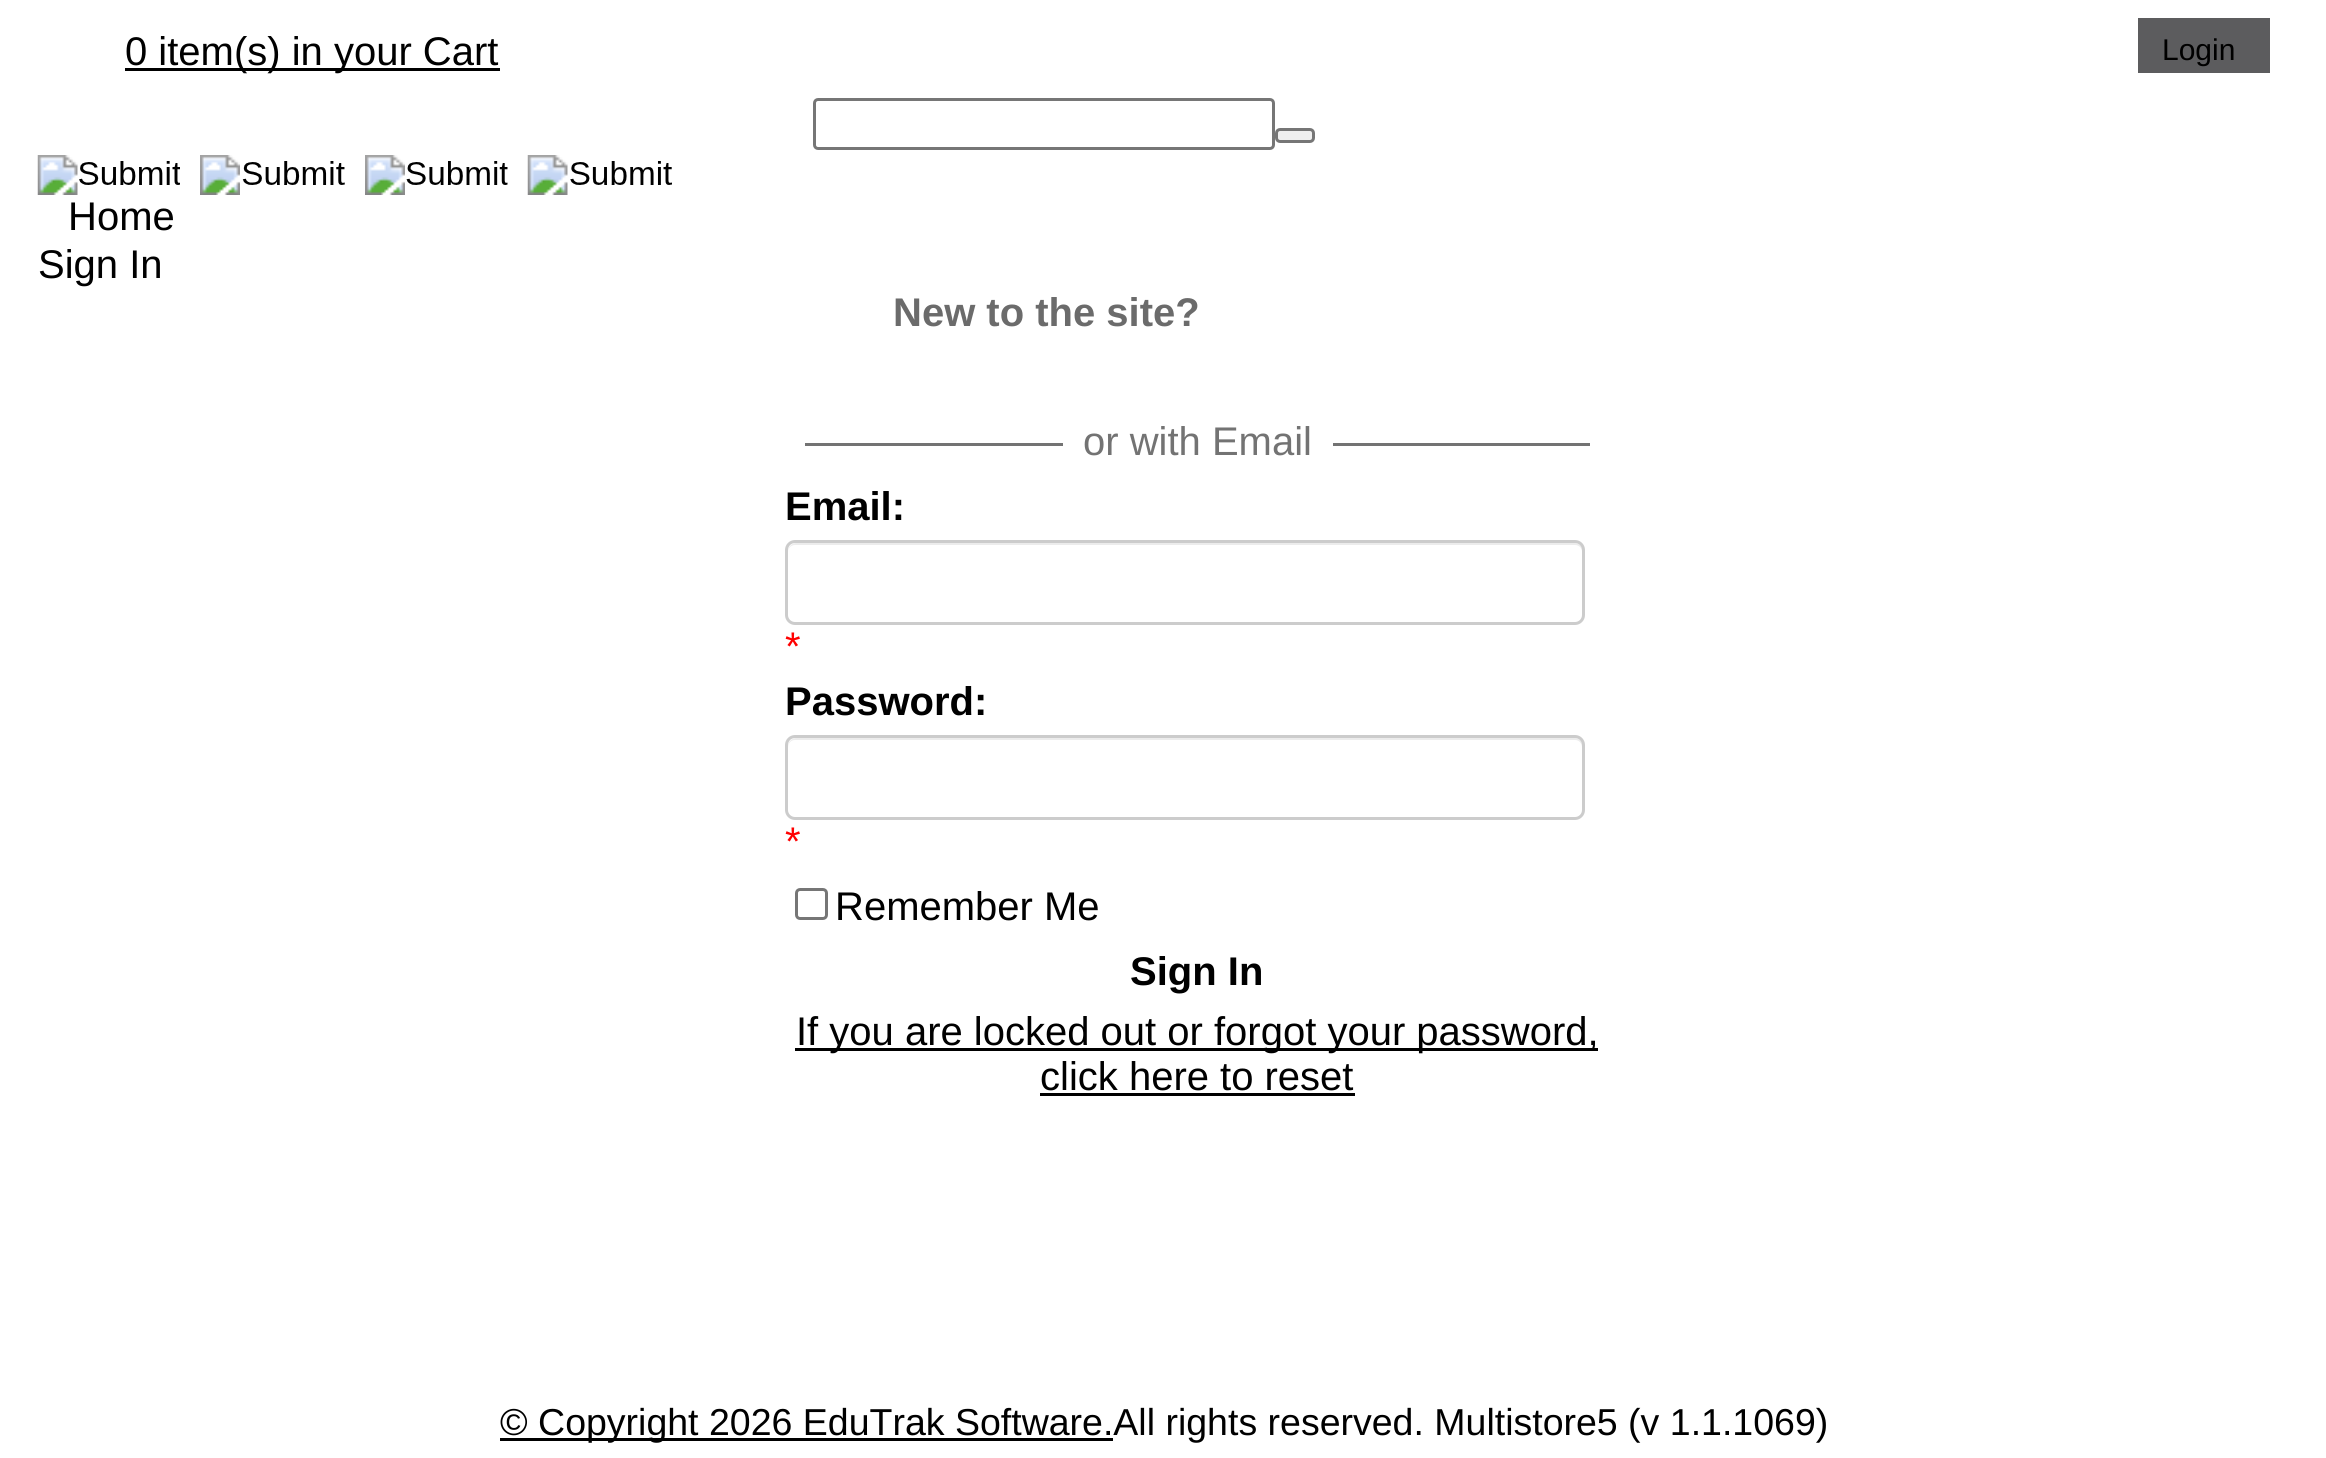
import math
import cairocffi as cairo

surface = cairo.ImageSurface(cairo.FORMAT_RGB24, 2326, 1458)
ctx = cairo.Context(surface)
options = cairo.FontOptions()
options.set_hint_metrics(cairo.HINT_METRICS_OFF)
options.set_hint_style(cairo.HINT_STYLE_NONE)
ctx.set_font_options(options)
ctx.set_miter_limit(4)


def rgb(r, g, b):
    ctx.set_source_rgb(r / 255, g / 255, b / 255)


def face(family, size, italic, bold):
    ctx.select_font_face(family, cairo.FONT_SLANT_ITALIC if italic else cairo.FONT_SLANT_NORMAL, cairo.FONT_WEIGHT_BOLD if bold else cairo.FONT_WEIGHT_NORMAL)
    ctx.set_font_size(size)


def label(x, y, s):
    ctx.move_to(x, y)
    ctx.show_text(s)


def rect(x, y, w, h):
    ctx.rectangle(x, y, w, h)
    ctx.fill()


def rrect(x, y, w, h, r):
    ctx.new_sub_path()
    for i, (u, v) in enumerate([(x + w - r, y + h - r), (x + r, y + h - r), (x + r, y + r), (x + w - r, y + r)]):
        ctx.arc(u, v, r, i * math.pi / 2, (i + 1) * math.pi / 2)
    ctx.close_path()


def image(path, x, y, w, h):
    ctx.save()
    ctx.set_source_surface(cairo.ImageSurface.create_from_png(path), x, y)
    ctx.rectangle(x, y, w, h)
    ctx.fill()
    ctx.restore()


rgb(255, 255, 255)
ctx.paint()
rgb(0, 0, 0)
rect(125, 68, 375, 3)
face('Liberation Sans', 40, 0, 0)
label(125, 65, '0 item(s) in your Cart')
rgb(92, 92, 94)
rect(2138, 18, 132, 55)
face('Liberation Sans', 30, 0, 0)
rgb(0, 0, 0)
label(2162, 60, 'Login')
rrect(814.5, 99.5, 459, 49, 3.5)
rgb(118, 118, 118)
ctx.set_line_width(3)
ctx.stroke()
rgb(239, 239, 239)
rrect(1276.5, 129.5, 37, 12, 3.5)
ctx.fill_preserve()
rgb(118, 118, 118)
ctx.stroke()
image('image0.png', 37, 155, 143, 40)
image('image1.png', 200, 155, 145, 40)
image('image2.png', 365, 155, 143, 40)
image('image3.png', 527, 155, 145, 40)
face('Liberation Sans', 40, 0, 0)
rgb(0, 0, 0)
label(68, 230, 'Home')
label(38, 278, 'Sign In')
face('Liberation Sans', 40, 0, 1)
rgb(107, 107, 107)
label(893, 326, 'New to the site?')
rgb(115, 115, 115)
rect(805, 443, 258, 3)
face('Liberation Sans', 40, 0, 0)
label(1083, 455, 'or with Email')
rect(1333, 443, 257, 3)
face('Liberation Sans', 40, 0, 1)
rgb(0, 0, 0)
label(785, 520, 'Email:')
rgb(236, 236, 236)
ctx.new_path()
ctx.move_to(795, 545)
ctx.line_to(1575, 545)
ctx.curve_to(1579, 545, 1582, 548, 1582, 552)
ctx.line_to(1582, 619)
ctx.curve_to(1583, 618, 1583, 616, 1583, 615)
ctx.line_to(1583, 551)
ctx.curve_to(1583, 547, 1579, 543, 1575, 543)
ctx.line_to(796, 543)
ctx.curve_to(792, 543, 788, 547, 788, 551)
ctx.line_to(788, 552)
ctx.curve_to(788, 548, 791, 545, 795, 545)
ctx.close_path()
ctx.fill()
rrect(786.5, 541.5, 797, 82, 8.5)
rgb(204, 204, 204)
ctx.stroke()
face('Liberation Sans', 40, 0, 0)
rgb(255, 0, 0)
label(785, 660, '*')
face('Liberation Sans', 40, 0, 1)
rgb(0, 0, 0)
label(785, 715, 'Password:')
rgb(236, 236, 236)
ctx.new_path()
ctx.move_to(795, 740)
ctx.line_to(1575, 740)
ctx.curve_to(1579, 740, 1582, 743, 1582, 748)
ctx.line_to(1582, 814)
ctx.curve_to(1583, 813, 1583, 812, 1583, 810)
ctx.line_to(1583, 746)
ctx.curve_to(1583, 742, 1579, 738, 1575, 738)
ctx.line_to(796, 738)
ctx.curve_to(792, 738, 788, 742, 788, 746)
ctx.line_to(788, 748)
ctx.curve_to(788, 743, 791, 740, 795, 740)
ctx.close_path()
ctx.fill()
rrect(786.5, 736.5, 797, 82, 8.5)
rgb(204, 204, 204)
ctx.stroke()
face('Liberation Sans', 40, 0, 0)
rgb(255, 0, 0)
label(785, 855, '*')
rrect(796.5, 889.5, 30, 29, 3.5)
rgb(118, 118, 118)
ctx.stroke()
rgb(0, 0, 0)
label(835, 920, 'Remember Me')
face('Liberation Sans', 40, 0, 1)
label(1130, 985, 'Sign In')
rect(795, 1048, 803, 3)
face('Liberation Sans', 40, 0, 0)
label(796, 1045, 'If you are locked out or forgot your password,')
label(1040, 1090, 'click here to reset')
rect(1040, 1093, 315, 3)
rect(500, 1438, 613, 3)
face('Liberation Sans', 37.5, 0, 0)
label(500, 1435, '© Copyright 2026 EduTrak Software.All rights reserved. Multistore5 (v 1.1.1069)')
surface.write_to_png('render.png')
